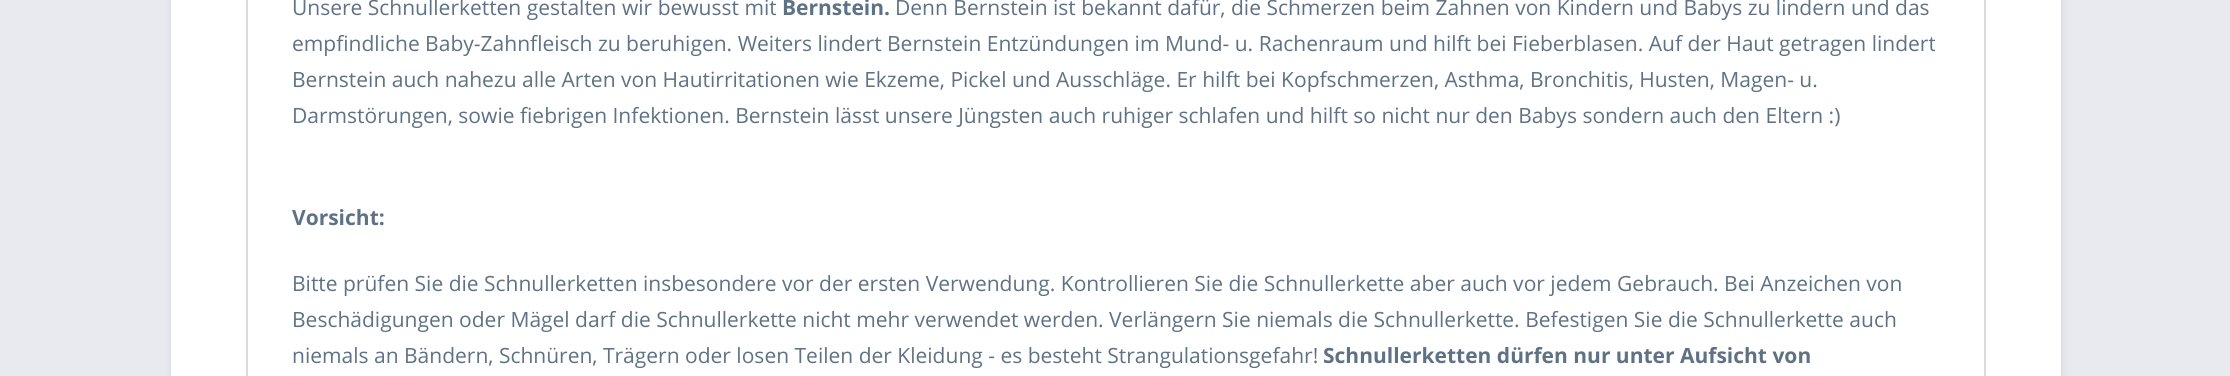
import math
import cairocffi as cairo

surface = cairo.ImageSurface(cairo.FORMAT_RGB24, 2230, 376)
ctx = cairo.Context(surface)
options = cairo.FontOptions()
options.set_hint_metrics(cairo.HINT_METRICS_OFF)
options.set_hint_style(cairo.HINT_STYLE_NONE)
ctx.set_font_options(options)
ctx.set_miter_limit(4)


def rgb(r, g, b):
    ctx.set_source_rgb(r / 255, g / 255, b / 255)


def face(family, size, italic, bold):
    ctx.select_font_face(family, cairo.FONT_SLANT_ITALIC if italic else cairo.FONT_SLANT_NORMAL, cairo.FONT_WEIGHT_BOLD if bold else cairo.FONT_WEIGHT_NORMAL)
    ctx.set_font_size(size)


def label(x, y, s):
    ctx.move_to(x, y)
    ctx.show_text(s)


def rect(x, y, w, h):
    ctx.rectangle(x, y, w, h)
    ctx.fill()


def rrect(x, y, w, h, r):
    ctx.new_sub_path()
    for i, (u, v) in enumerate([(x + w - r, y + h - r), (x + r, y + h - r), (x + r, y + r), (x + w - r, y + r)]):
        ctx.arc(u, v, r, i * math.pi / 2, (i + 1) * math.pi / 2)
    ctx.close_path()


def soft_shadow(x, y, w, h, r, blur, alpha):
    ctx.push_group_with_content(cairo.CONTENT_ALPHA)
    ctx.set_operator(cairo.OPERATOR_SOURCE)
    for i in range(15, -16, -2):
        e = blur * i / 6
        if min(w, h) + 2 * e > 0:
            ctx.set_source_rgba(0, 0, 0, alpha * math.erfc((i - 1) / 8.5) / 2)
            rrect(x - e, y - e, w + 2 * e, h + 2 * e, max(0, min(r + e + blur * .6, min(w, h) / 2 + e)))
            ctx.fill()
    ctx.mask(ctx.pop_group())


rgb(233, 233, 240)
ctx.paint()
rgb(218, 218, 229)
soft_shadow(170, -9, 1893, 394, 0, 3, 1)
rgb(255, 255, 255)
rect(171, 0, 1890, 376)
ctx.rectangle(247, -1, 1738, 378)
rgb(218, 218, 229)
ctx.stroke()
face('Open Sans', 21, 0, 0)
rgb(95, 114, 133)
label(292, 15, 'Unsere Schnullerketten gestalten wir bewusst mit')
face('Open Sans', 21, 0, 1)
label(782, 15, 'Bernstein.')
face('Open Sans', 21, 0, 0)
label(895, 15, 'Denn Bernstein ist bekannt dafür, die Schmerzen beim Zahnen von Kindern und Babys zu lindern und das')
label(292, 51, 'empfindliche Baby-Zahnfleisch zu beruhigen. Weiters lindert Bernstein Entzündungen im Mund- u. Rachenraum und hilft bei Fieberblasen. Auf der Haut getragen lindert')
label(292, 87, 'Bernstein auch nahezu alle Arten von Hautirritationen wie Ekzeme, Pickel und Ausschläge. Er hilft bei Kopfschmerzen, Asthma, Bronchitis, Husten, Magen- u.')
label(292, 123, 'Darmstörungen, sowie fiebrigen Infektionen. Bernstein lässt unsere Jüngsten auch ruhiger schlafen und hilft so nicht nur den Babys sondern auch den Eltern :)')
face('Open Sans', 21, 0, 1)
label(292, 225, 'Vorsicht:')
face('Open Sans', 21, 0, 0)
label(292, 291, 'Bitte prüfen Sie die Schnullerketten insbesondere vor der ersten Verwendung. Kontrollieren Sie die Schnullerkette aber auch vor jedem Gebrauch. Bei Anzeichen von')
label(292, 327, 'Beschädigungen oder Mägel darf die Schnullerkette nicht mehr verwendet werden. Verlängern Sie niemals die Schnullerkette. Befestigen Sie die Schnullerkette auch')
label(292, 363, 'niemals an Bändern, Schnüren, Trägern oder losen Teilen der Kleidung - es besteht Strangulationsgefahr!')
face('Open Sans', 21, 0, 1)
label(1323, 363, 'Schnullerketten dürfen nur unter Aufsicht von')
surface.write_to_png('render.png')
